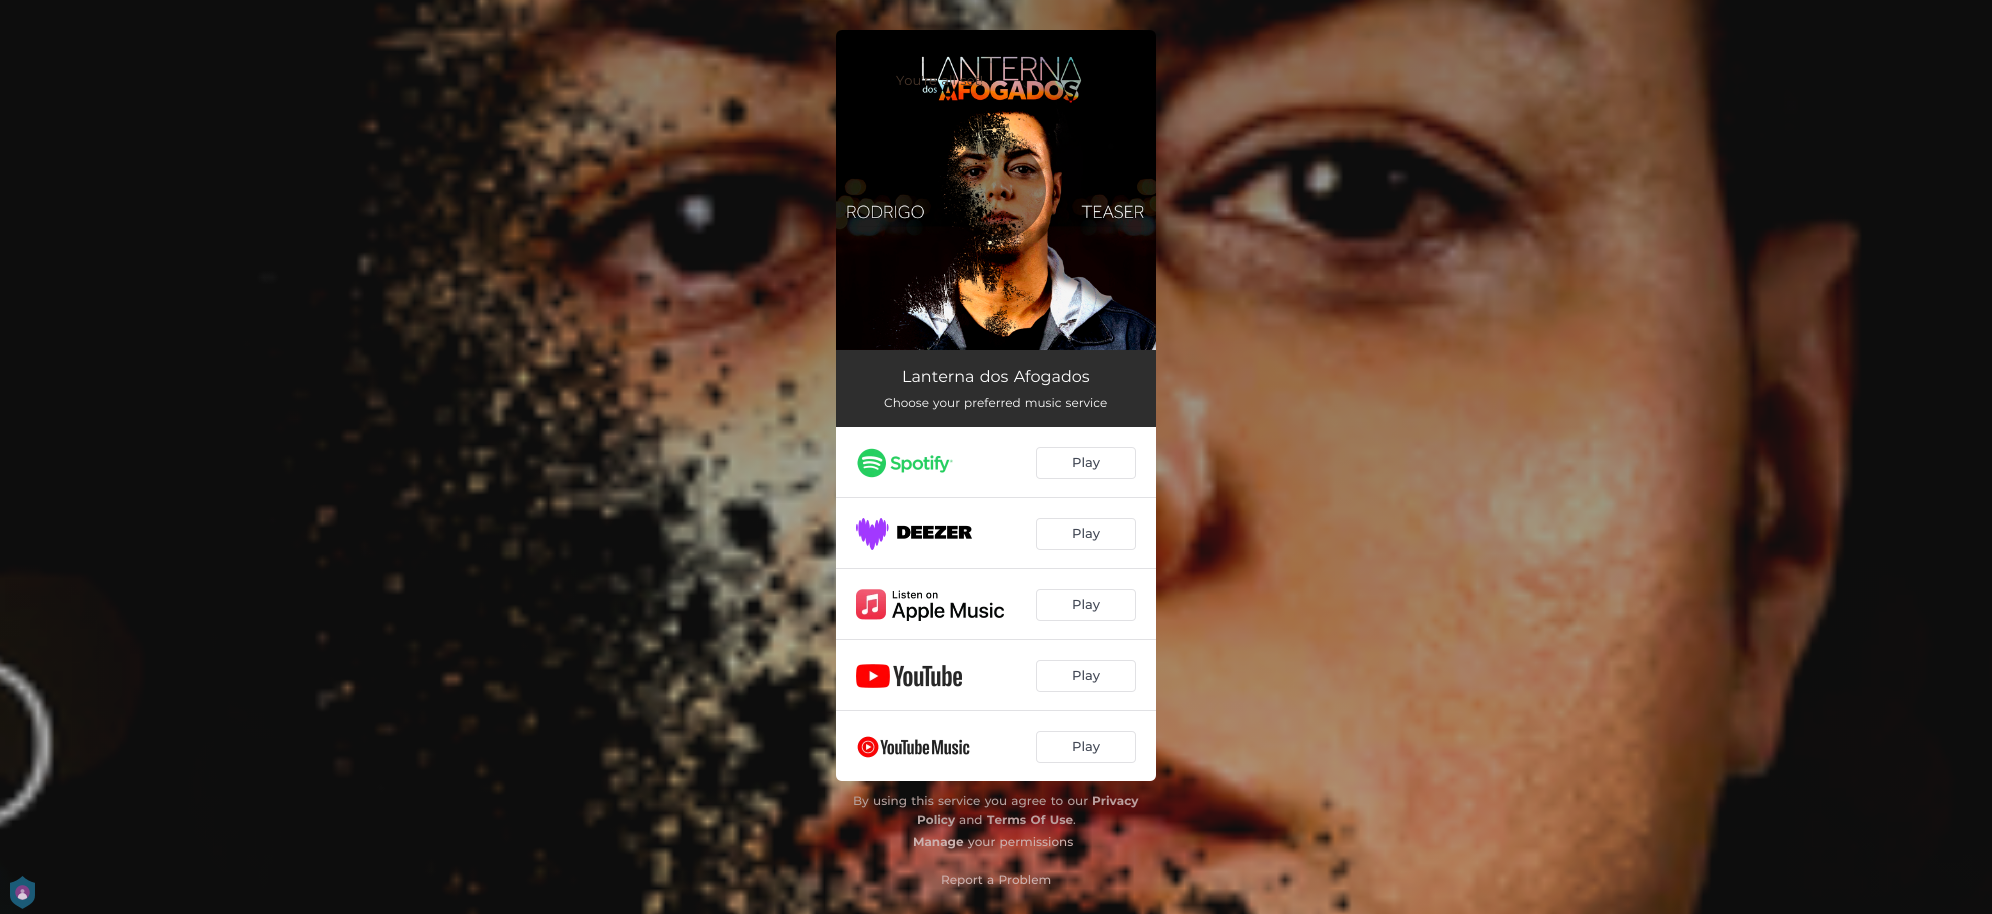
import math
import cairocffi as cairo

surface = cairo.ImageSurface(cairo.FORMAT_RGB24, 1992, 914)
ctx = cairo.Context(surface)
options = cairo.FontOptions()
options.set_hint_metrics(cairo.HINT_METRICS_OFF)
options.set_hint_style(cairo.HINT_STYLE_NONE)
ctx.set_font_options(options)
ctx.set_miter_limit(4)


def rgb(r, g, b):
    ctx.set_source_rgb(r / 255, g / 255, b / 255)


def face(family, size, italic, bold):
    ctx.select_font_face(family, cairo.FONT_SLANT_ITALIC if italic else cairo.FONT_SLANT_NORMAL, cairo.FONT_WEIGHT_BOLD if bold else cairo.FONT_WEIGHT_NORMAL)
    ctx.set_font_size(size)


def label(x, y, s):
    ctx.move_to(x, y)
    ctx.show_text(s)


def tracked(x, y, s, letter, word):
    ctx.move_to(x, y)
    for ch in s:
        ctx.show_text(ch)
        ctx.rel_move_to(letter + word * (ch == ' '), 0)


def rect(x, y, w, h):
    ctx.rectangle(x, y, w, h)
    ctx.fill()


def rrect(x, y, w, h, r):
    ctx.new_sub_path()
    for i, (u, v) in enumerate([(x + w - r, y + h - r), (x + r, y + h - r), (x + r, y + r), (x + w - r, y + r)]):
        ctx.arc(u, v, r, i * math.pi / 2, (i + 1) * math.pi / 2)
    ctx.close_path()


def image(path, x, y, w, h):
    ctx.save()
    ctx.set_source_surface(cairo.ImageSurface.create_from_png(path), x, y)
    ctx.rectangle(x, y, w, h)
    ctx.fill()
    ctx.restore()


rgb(255, 255, 255)
ctx.paint()
image('image0.png', 0, 0, 1992, 914)
image('image1.png', 836, 30, 320, 320)
ctx.set_source_rgba(0, 0, 0, 0.45)
ctx.arc(996, 190, 50, 0, 2 * math.pi)
ctx.fill()
face('Montserrat', 13, 0, 0)
rgb(73, 54, 42)
tracked(896, 85, 'You\'re all set!', 0, 1)
rgb(46, 46, 46)
rect(836, 350, 320, 77)
face('Montserrat', 16, 0, 0)
rgb(255, 255, 255)
tracked(902, 382, 'Lanterna dos Afogados', 0, 1)
face('Montserrat', 12, 0, 0)
tracked(884, 407, 'Choose your preferred music service', 0, 1)
ctx.new_path()
ctx.move_to(836, 427)
ctx.line_to(1156, 427)
ctx.line_to(1156, 775)
ctx.curve_to(1156, 778.5, 1153.5, 781, 1150, 781)
ctx.line_to(842, 781)
ctx.curve_to(838.5, 781, 836, 778.5, 836, 775)
ctx.close_path()
ctx.fill()
rgb(225, 225, 228)
rect(836, 497, 320, 1)
image('image2.png', 857, 448, 96, 30)
rrect(1036.5, 447.5, 99, 31, 3.5)
ctx.set_line_width(1)
ctx.stroke()
face('Montserrat Medium', 13, 0, 0)
rgb(65, 71, 84)
label(1072, 467, 'Play')
rgb(225, 225, 228)
rect(836, 568, 320, 1)
image('image3.png', 856, 518, 116, 32)
rrect(1036.5, 518.5, 99, 31, 3.5)
ctx.stroke()
rgb(65, 71, 84)
label(1072, 538, 'Play')
rgb(225, 225, 228)
rect(836, 639, 320, 1)
image('image4.png', 856, 589, 148, 32)
rrect(1036.5, 589.5, 99, 31, 3.5)
ctx.stroke()
rgb(65, 71, 84)
label(1072, 609, 'Play')
rgb(225, 225, 228)
rect(836, 710, 320, 1)
image('image5.png', 856, 664, 106, 24)
rrect(1036.5, 660.5, 99, 31, 3.5)
ctx.stroke()
rgb(65, 71, 84)
label(1072, 680, 'Play')
image('image6.png', 857, 736, 113, 22)
rrect(1036.5, 731.5, 99, 31, 3.5)
rgb(225, 225, 228)
ctx.stroke()
rgb(65, 71, 84)
label(1072, 751, 'Play')
face('Montserrat Medium', 12, 0, 0)
rgb(181, 162, 159)
tracked(853, 805, 'By using this service you agree to our', 0, 1)
face('Montserrat', 12, 0, 1)
rgb(187, 159, 158)
label(1092, 805, 'Privacy')
rgb(181, 162, 159)
label(917, 824, 'Policy')
face('Montserrat Medium', 12, 0, 0)
label(959, 824, 'and')
face('Montserrat', 12, 0, 1)
rgb(187, 159, 158)
tracked(987, 824, 'Terms Of Use', 0, 1)
face('Montserrat Medium', 12, 0, 0)
rgb(168, 159, 159)
label(1073, 824, '.')
face('Montserrat', 12, 0, 1)
rgb(204, 178, 175)
label(913, 846, 'Manage')
face('Montserrat Medium', 12, 0, 0)
tracked(968, 846, 'your permissions', 0, 1)
tracked(941, 884, 'Report a Problem', 0, 1)
image('image7.png', 10, 876, 25, 33)
surface.write_to_png('render.png')
